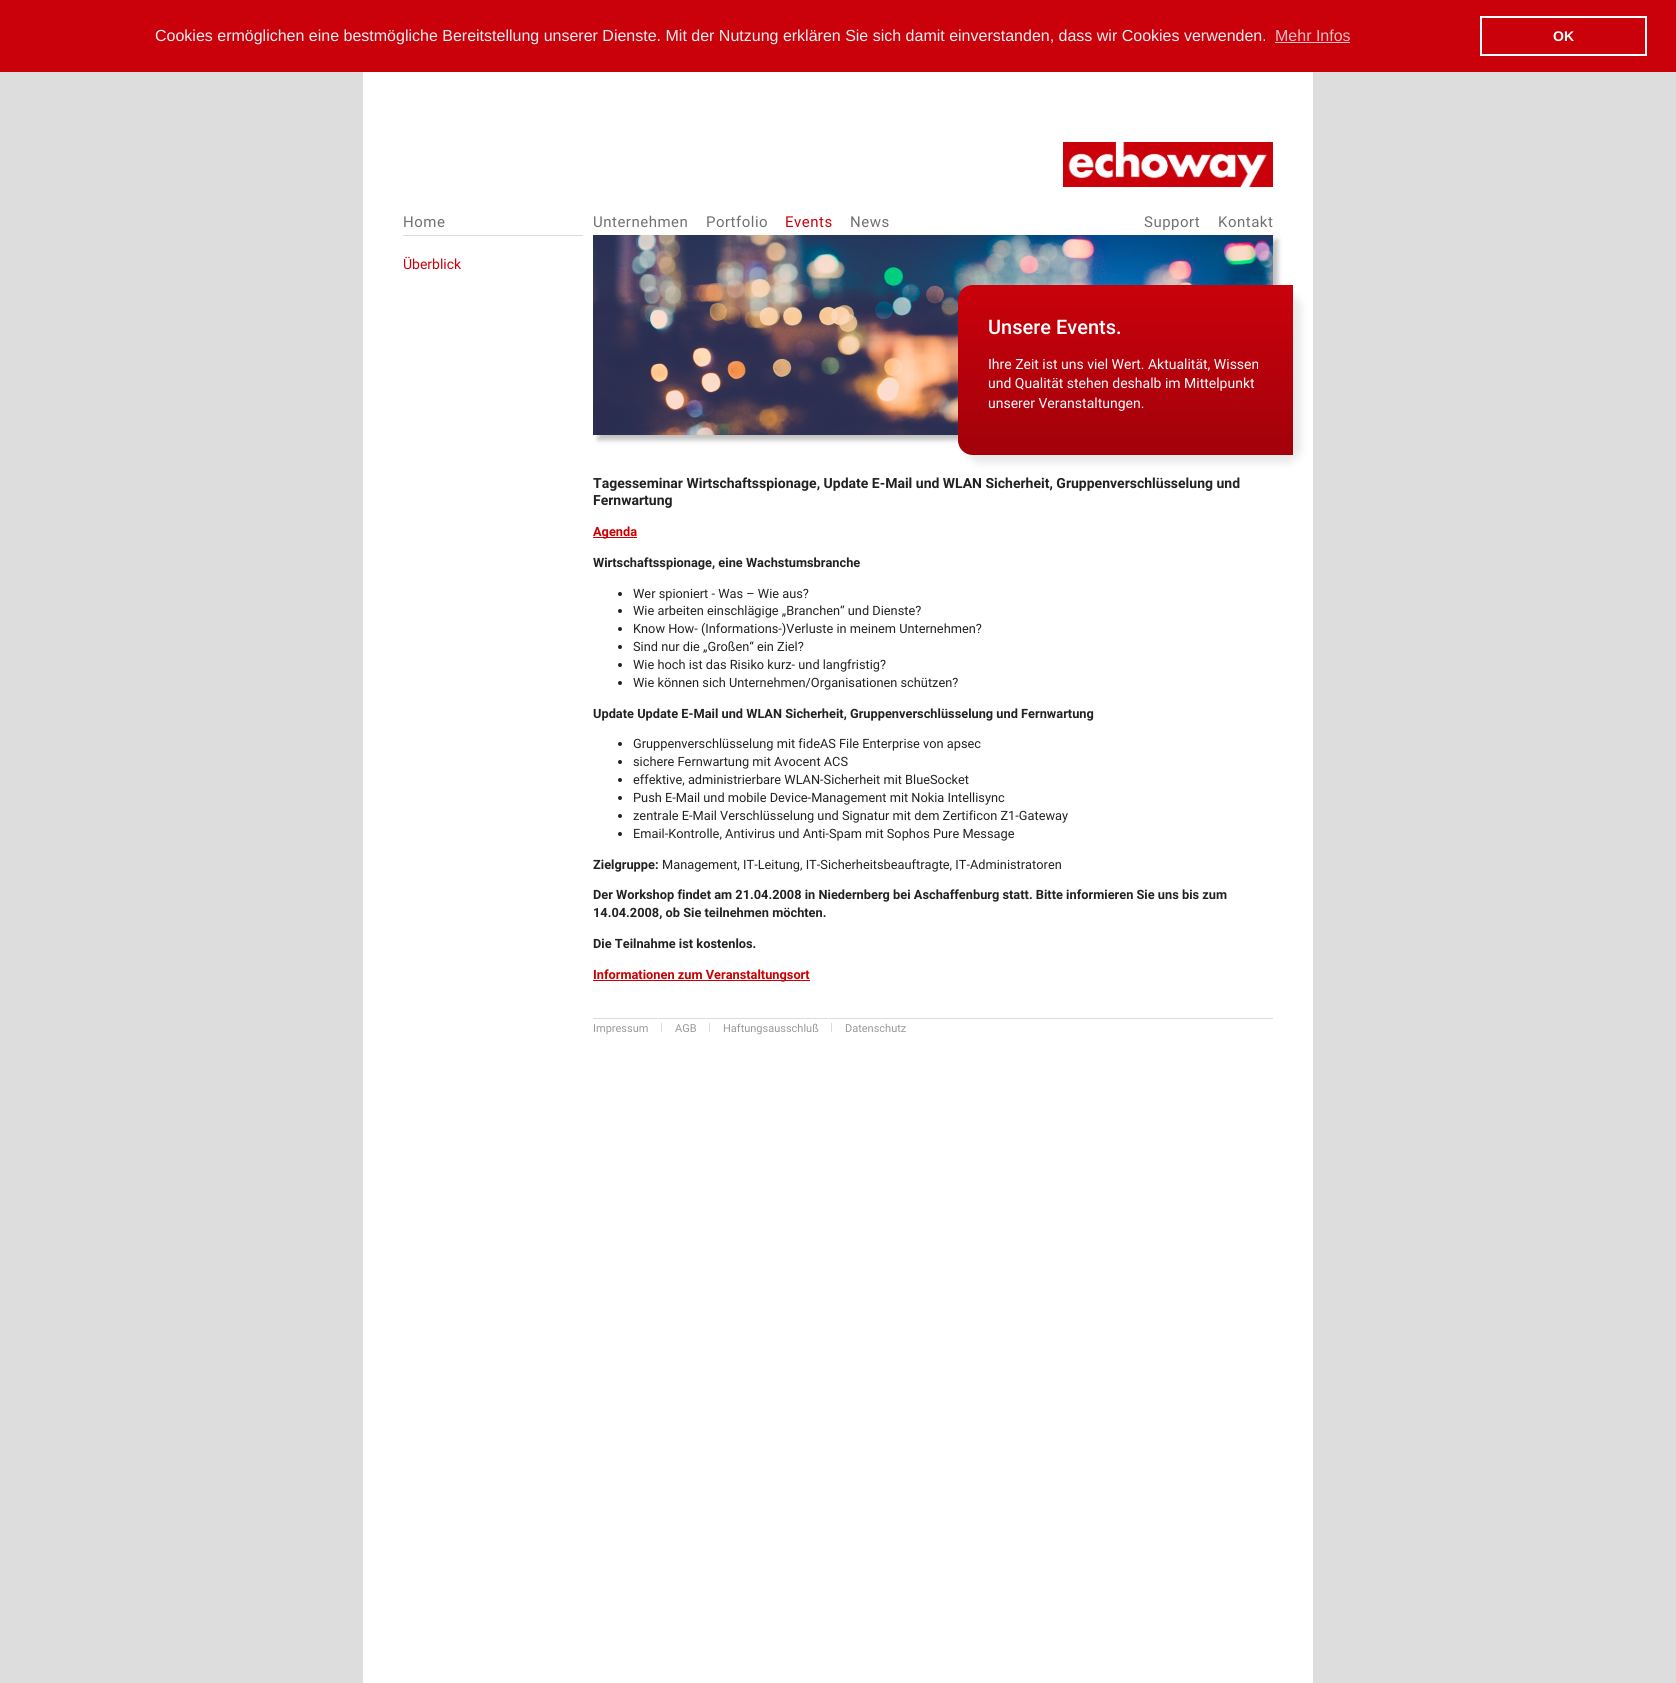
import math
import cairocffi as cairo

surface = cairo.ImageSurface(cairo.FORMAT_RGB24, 1676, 1683)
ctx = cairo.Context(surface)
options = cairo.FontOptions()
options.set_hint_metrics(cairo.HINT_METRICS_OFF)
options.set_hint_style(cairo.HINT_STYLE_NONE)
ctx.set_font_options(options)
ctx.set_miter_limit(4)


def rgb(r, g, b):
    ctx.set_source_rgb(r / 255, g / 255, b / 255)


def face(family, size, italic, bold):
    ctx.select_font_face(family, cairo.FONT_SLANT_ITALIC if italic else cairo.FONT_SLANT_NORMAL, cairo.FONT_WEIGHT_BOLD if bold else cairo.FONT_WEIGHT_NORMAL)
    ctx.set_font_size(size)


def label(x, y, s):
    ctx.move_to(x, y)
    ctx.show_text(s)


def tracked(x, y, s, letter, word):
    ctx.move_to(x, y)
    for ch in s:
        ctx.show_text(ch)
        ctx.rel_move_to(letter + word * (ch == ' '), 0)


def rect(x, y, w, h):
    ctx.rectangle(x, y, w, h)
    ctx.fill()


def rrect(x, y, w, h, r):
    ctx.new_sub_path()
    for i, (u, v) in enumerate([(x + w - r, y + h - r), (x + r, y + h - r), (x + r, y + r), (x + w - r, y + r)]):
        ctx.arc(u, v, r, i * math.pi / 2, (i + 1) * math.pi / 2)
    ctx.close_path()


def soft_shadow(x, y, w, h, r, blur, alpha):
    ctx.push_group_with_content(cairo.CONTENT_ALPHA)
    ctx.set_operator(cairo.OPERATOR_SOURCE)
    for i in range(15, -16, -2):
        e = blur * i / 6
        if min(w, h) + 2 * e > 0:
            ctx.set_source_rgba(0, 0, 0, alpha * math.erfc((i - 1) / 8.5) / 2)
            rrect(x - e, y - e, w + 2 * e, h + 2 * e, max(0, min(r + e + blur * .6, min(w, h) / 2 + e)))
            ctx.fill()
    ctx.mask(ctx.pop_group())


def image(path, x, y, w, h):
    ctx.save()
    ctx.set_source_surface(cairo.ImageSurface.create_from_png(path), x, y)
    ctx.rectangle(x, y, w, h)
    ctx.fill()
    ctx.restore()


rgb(221, 221, 221)
ctx.paint()
rgb(202, 1, 11)
rect(0, 0, 1676, 72)
face('Liberation Sans', 16, 0, 0)
rgb(240, 240, 240)
label(155, 41, 'Cookies ermöglichen eine bestmögliche Bereitstellung unserer Dienste. Mit der Nutzung erklären Sie sich damit einverstanden, dass wir Cookies verwenden.')
rgb(232, 192, 194)
label(1275, 41, 'Mehr Infos')
rect(1275, 42, 75, 1)
ctx.rectangle(1481, 17, 165, 38)
rgb(255, 255, 255)
ctx.stroke()
face('Liberation Sans', 14, 0, 1)
label(1553, 41, 'OK')
rect(363, 72, 950, 1611)
image('image0.png', 1063, 142, 210, 45)
face('Roboto', 15, 0, 0)
rgb(112, 112, 112)
tracked(403, 227, 'Home', 0.5, 0)
tracked(593, 227, 'Unternehmen', 0.5, 0)
tracked(706, 227, 'Portfolio', 0.5, 0)
rgb(202, 1, 11)
tracked(785, 227, 'Events', 0.5, 0)
rgb(112, 112, 112)
tracked(850, 227, 'News', 0.5, 0)
tracked(1144, 227, 'Support', 0.5, 0)
tracked(1218, 227, 'Kontakt', 0.5, 0)
rgb(221, 220, 218)
rect(403, 235, 180, 1)
face('Roboto', 14, 0, 0)
rgb(202, 1, 11)
label(403, 269, 'Überblick')
rgb(192, 192, 192)
soft_shadow(598, 240, 680, 200, 0, 2.5, 1)
image('image1.png', 593, 235, 680, 200)
rgb(232, 232, 232)
soft_shadow(966, 293, 335, 170, 15, 4, 1)
gradient = cairo.LinearGradient(1126, 455, 1126, 285)
gradient.add_color_stop_rgba(0, 0.635, 0.004, 0.043, 1)
gradient.add_color_stop_rgba(1, 0.792, 0.004, 0.043, 1)
ctx.set_source(gradient)
ctx.new_path()
ctx.move_to(973, 285)
ctx.line_to(1293, 285)
ctx.line_to(1293, 455)
ctx.line_to(973, 455)
ctx.curve_to(964.5, 455, 958, 448.5, 958, 440)
ctx.line_to(958, 300)
ctx.curve_to(958, 291.5, 964.5, 285, 973, 285)
ctx.close_path()
ctx.fill()
face('Roboto Medium', 20, 0, 0)
rgb(255, 255, 255)
label(988, 334, 'Unsere Events.')
face('Roboto', 14, 0, 0)
label(988, 369, 'Ihre Zeit ist uns viel Wert. Aktualität, Wissen')
label(988, 388, 'und Qualität stehen deshalb im Mittelpunkt')
label(988, 408, 'unserer Veranstaltungen.')
face('Roboto', 14, 0, 1)
rgb(34, 34, 34)
label(593, 488, 'Tagesseminar Wirtschaftsspionage, Update E-Mail und WLAN Sicherheit, Gruppenverschlüsselung und')
label(593, 505, 'Fernwartung')
rgb(204, 0, 0)
rect(593, 537, 44, 1)
face('Roboto', 12.8, 0, 1)
label(593, 536, 'Agenda')
rgb(34, 34, 34)
label(593, 567, 'Wirtschaftsspionage, eine Wachstumsbranche')
ctx.new_path()
ctx.arc(620, 594, 2, 0, 2 * math.pi)
ctx.fill()
face('Roboto', 12.8, 0, 0)
label(633, 598, 'Wer spioniert - Was – Wie aus?')
ctx.new_path()
ctx.arc(620, 611, 2, 0, 2 * math.pi)
ctx.fill()
label(633, 615, 'Wie arbeiten einschlägige „Branchen“ und Dienste?')
ctx.new_path()
ctx.arc(620, 629, 2, 0, 2 * math.pi)
ctx.fill()
label(633, 633, 'Know How- (Informations-)Verluste in meinem Unternehmen?')
ctx.new_path()
ctx.arc(620, 647, 2, 0, 2 * math.pi)
ctx.fill()
label(633, 651, 'Sind nur die „Großen“ ein Ziel?')
ctx.new_path()
ctx.arc(620, 665, 2, 0, 2 * math.pi)
ctx.fill()
label(633, 669, 'Wie hoch ist das Risiko kurz- und langfristig?')
ctx.new_path()
ctx.arc(620, 683, 2, 0, 2 * math.pi)
ctx.fill()
label(633, 687, 'Wie können sich Unternehmen/Organisationen schützen?')
face('Roboto', 12.8, 0, 1)
label(593, 718, 'Update Update E-Mail und WLAN Sicherheit, Gruppenverschlüsselung und Fernwartung')
ctx.new_path()
ctx.arc(620, 744, 2, 0, 2 * math.pi)
ctx.fill()
face('Roboto', 12.8, 0, 0)
label(633, 748, 'Gruppenverschlüsselung mit fideAS File Enterprise von apsec')
ctx.new_path()
ctx.arc(620, 762, 2, 0, 2 * math.pi)
ctx.fill()
label(633, 766, 'sichere Fernwartung mit Avocent ACS')
ctx.new_path()
ctx.arc(620, 780, 2, 0, 2 * math.pi)
ctx.fill()
label(633, 784, 'effektive, administrierbare WLAN-Sicherheit mit BlueSocket')
ctx.new_path()
ctx.arc(620, 798, 2, 0, 2 * math.pi)
ctx.fill()
label(633, 802, 'Push E-Mail und mobile Device-Management mit Nokia Intellisync')
ctx.new_path()
ctx.arc(620, 816, 2, 0, 2 * math.pi)
ctx.fill()
label(633, 820, 'zentrale E-Mail Verschlüsselung und Signatur mit dem Zertificon Z1-Gateway')
ctx.new_path()
ctx.arc(620, 834, 2, 0, 2 * math.pi)
ctx.fill()
label(633, 838, 'Email-Kontrolle, Antivirus und Anti-Spam mit Sophos Pure Message')
face('Roboto', 12.8, 0, 1)
label(593, 869, 'Zielgruppe:')
face('Roboto', 12.8, 0, 0)
label(662, 869, 'Management, IT-Leitung, IT-Sicherheitsbeauftragte, IT-Administratoren')
face('Roboto', 12.8, 0, 1)
label(593, 899, 'Der Workshop findet am 21.04.2008 in Niedernberg bei Aschaffenburg statt. Bitte informieren Sie uns bis zum')
label(593, 917, '14.04.2008, ob Sie teilnehmen möchten.')
label(593, 948, 'Die Teilnahme ist kostenlos.')
rgb(204, 0, 0)
rect(593, 980, 217, 1)
label(593, 979, 'Informationen zum Veranstaltungsort')
rgb(221, 220, 218)
rect(593, 1018, 680, 1)
face('Roboto', 11, 0, 0)
rgb(153, 153, 153)
label(593, 1032, 'Impressum')
rgb(221, 220, 218)
rect(661, 1023, 1, 9)
rgb(153, 153, 153)
label(675, 1032, 'AGB')
rgb(221, 220, 218)
rect(709, 1023, 1, 9)
rgb(153, 153, 153)
label(723, 1032, 'Haftungsausschluß')
rgb(221, 220, 218)
rect(831, 1023, 1, 9)
rgb(153, 153, 153)
label(845, 1032, 'Datenschutz')
surface.write_to_png('render.png')
